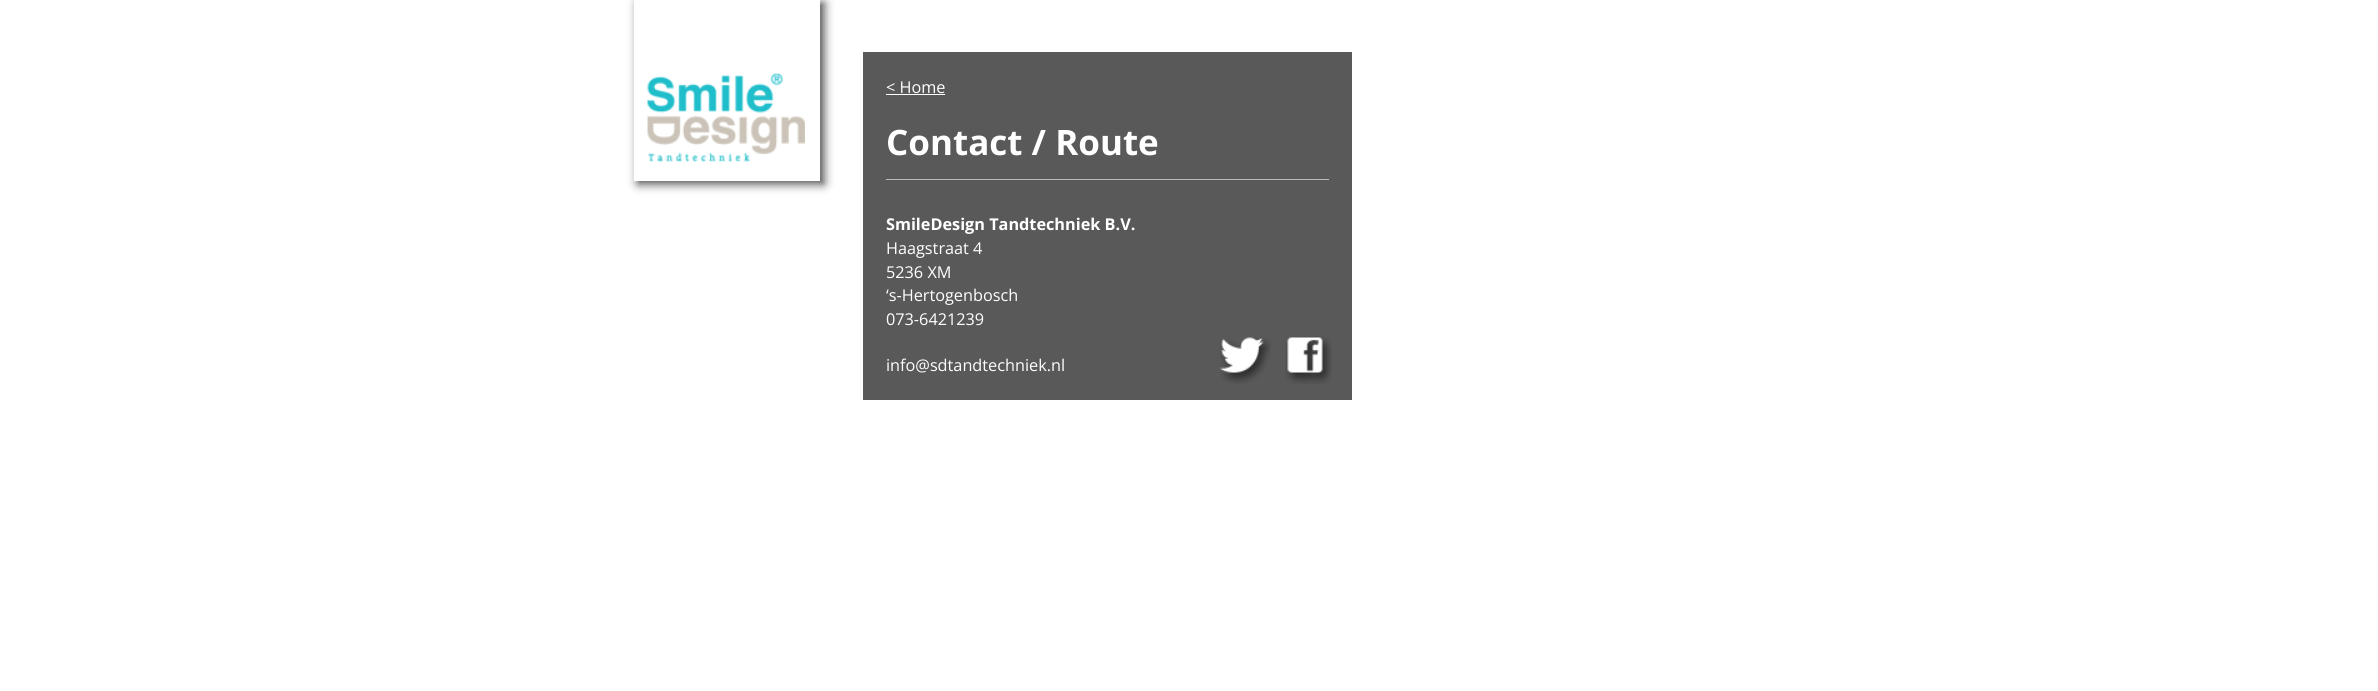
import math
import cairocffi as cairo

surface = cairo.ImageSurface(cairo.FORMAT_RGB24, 2378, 691)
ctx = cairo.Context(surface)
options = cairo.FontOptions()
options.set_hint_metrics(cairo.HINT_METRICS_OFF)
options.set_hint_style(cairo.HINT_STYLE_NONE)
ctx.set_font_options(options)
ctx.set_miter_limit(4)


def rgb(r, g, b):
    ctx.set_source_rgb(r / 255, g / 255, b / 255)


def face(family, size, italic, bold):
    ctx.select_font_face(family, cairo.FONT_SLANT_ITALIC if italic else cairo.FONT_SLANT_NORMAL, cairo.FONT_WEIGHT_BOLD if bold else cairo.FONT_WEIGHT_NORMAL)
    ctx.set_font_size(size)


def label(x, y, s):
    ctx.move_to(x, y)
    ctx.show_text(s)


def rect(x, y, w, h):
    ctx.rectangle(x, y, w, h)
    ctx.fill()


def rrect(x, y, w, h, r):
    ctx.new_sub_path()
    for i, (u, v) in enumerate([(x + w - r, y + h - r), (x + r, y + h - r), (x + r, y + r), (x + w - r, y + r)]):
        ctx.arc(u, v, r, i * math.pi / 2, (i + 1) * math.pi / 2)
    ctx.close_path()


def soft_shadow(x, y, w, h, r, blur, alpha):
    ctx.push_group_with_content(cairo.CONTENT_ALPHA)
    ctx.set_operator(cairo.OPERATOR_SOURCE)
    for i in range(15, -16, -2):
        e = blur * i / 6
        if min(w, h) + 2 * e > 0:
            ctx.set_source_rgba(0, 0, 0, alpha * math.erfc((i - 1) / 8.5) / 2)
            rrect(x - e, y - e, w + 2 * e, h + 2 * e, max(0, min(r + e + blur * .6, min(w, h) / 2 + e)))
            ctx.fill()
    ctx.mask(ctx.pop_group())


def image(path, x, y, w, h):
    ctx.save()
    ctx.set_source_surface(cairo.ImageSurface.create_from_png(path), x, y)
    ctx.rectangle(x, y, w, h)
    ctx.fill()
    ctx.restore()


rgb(255, 255, 255)
ctx.paint()
ctx.save()
ctx.set_fill_rule(cairo.FILL_RULE_EVEN_ODD)
ctx.new_path()
ctx.move_to(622, 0)
ctx.line_to(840, 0)
ctx.line_to(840, 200)
ctx.line_to(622, 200)
ctx.close_path()
ctx.move_to(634, 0)
ctx.line_to(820, 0)
ctx.line_to(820, 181)
ctx.line_to(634, 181)
ctx.close_path()
ctx.clip()
rgb(75, 75, 75)
soft_shadow(638, 3, 186, 181, 0, 5, 1)
ctx.restore()
image('image0.png', 647, 73, 158, 89)
rgb(89, 89, 89)
rect(863, 52, 489, 348)
face('Open Sans', 16.25, 0, 0)
rgb(255, 255, 255)
label(886, 93, '< Home')
rect(886, 94, 59, 1)
rgb(186, 186, 186)
rect(886, 179, 443, 1)
face('Open Sans', 35, 0, 1)
rgb(255, 255, 255)
label(886, 155, 'Contact / Route')
face('Open Sans', 16.25, 0, 1)
label(886, 230, 'SmileDesign Tandtechniek B.V.')
face('Open Sans', 16.25, 0, 0)
label(886, 254, 'Haagstraat 4')
label(886, 278, '5236 XM')
label(886, 301, '‘s-Hertogenbosch')
label(886, 325, '073-6421239')
label(886, 371, 'info@sdtandtechniek.nl')
image('image1.png', 1220, 337, 51, 47)
image('image2.png', 1285, 336, 47, 48)
surface.write_to_png('render.png')
